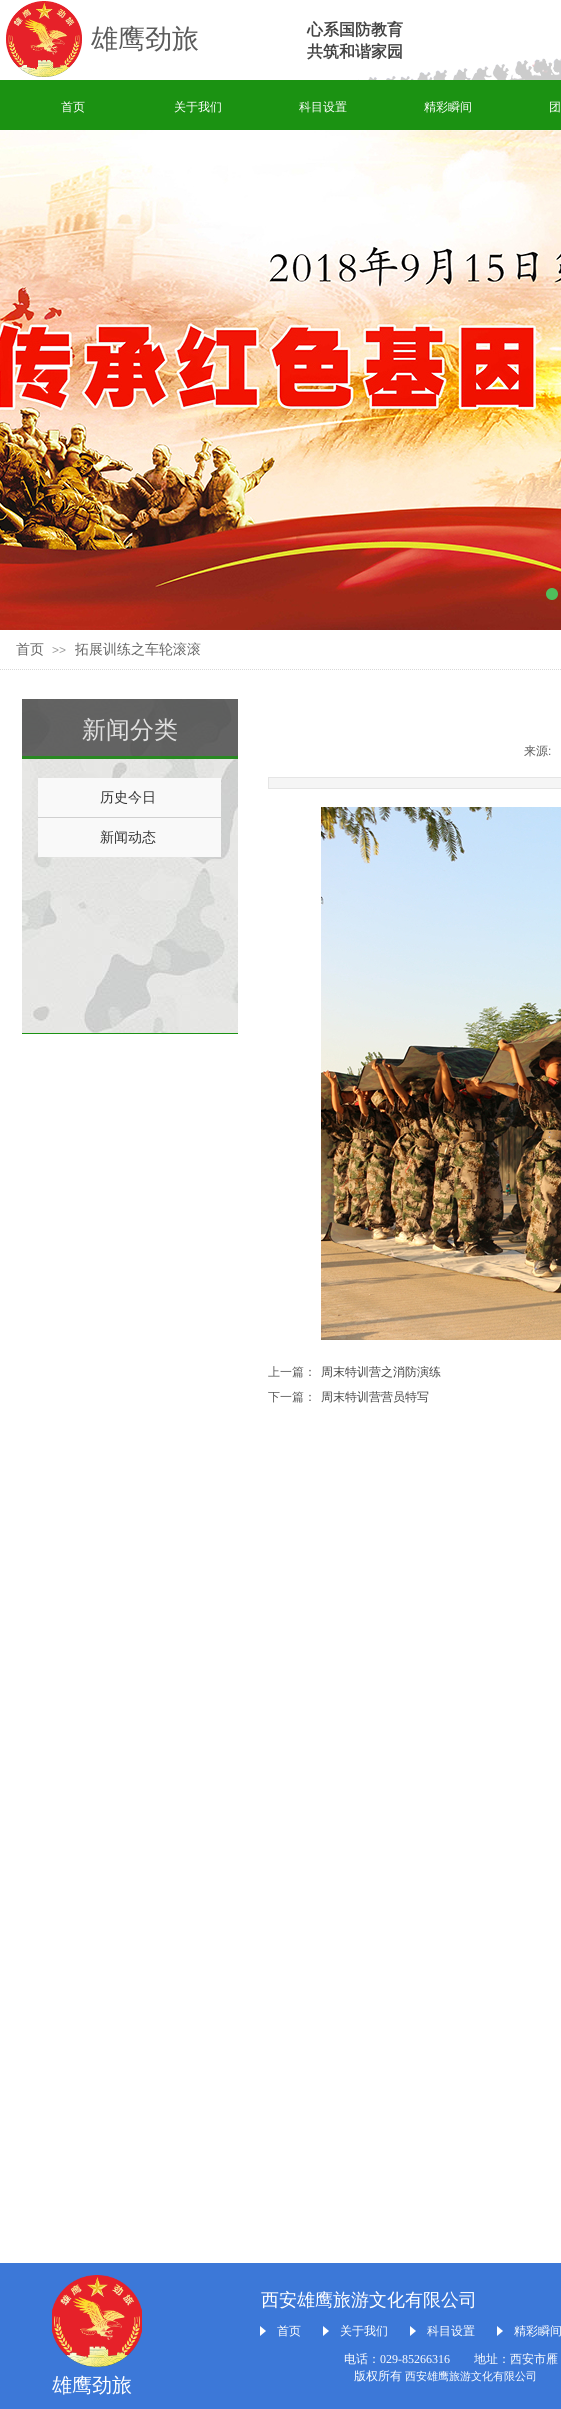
import math
import cairocffi as cairo

surface = cairo.ImageSurface(cairo.FORMAT_RGB24, 561, 2409)
ctx = cairo.Context(surface)
options = cairo.FontOptions()
options.set_hint_metrics(cairo.HINT_METRICS_OFF)
options.set_hint_style(cairo.HINT_STYLE_NONE)
ctx.set_font_options(options)
ctx.set_miter_limit(4)


def rgb(r, g, b):
    ctx.set_source_rgb(r / 255, g / 255, b / 255)


def face(family, size, italic, bold):
    ctx.select_font_face(family, cairo.FONT_SLANT_ITALIC if italic else cairo.FONT_SLANT_NORMAL, cairo.FONT_WEIGHT_BOLD if bold else cairo.FONT_WEIGHT_NORMAL)
    ctx.set_font_size(size)


def label(x, y, s):
    ctx.move_to(x, y)
    ctx.show_text(s)


def rect(x, y, w, h):
    ctx.rectangle(x, y, w, h)
    ctx.fill()


def image(path, x, y, w, h):
    ctx.save()
    ctx.set_source_surface(cairo.ImageSurface.create_from_png(path), x, y)
    ctx.rectangle(x, y, w, h)
    ctx.fill()
    ctx.restore()


rgb(255, 255, 255)
ctx.paint()
image('image0.png', 6, 1, 76, 76)
face('WenQuanYi Zen Hei Medium', 27, 0, 0)
rgb(90, 90, 90)
label(91, 48, '雄鹰劲旅')
face('WenQuanYi Zen Hei', 16, 0, 1)
rgb(67, 67, 67)
label(307, 35, '心系国防教育')
image('image1.png', 358, 58, 203, 22)
label(307, 57, '共筑和谐家园')
rgb(27, 146, 18)
rect(0, 80, 561, 50)
face('WenQuanYi Zen Hei Medium', 12, 0, 0)
rgb(255, 255, 255)
label(61, 111, '首页')
label(174, 111, '关于我们')
label(299, 111, '科目设置')
label(424, 111, '精彩瞬间')
label(549, 111, '团')
image('image2.png', 0, 130, 561, 500)
image('image3.png', 32, 369, 17, 25)
rgb(80, 190, 91)
ctx.arc(552, 594, 6, 0, 2 * math.pi)
ctx.fill()
ctx.new_path()
ctx.move_to(0, 669.5)
ctx.line_to(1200, 669.5)
rgb(217, 217, 217)
ctx.set_line_width(1)
ctx.set_dash([1, 1])
ctx.stroke()
face('WenQuanYi Zen Hei Medium', 14, 0, 0)
rgb(102, 102, 102)
label(16, 654, '首页')
face('Liberation Sans', 12, 0, 0)
rgb(153, 153, 153)
label(52, 654, '>>')
face('WenQuanYi Zen Hei Medium', 14, 0, 0)
rgb(102, 102, 102)
label(75, 654, '拓展训练之车轮滚滚')
image('image4.png', 22, 699, 216, 334)
rgb(27, 146, 18)
rect(22, 1033, 216, 1)
ctx.set_source_rgba(0.263, 0.263, 0.263, 0.8)
rect(22, 699, 216, 60)
ctx.set_source_rgba(0.106, 0.573, 0.071, 0.8)
rect(22, 756, 216, 3)
face('WenQuanYi Zen Hei Medium', 24, 0, 0)
rgb(224, 224, 224)
label(82, 738, '新闻分类')
rgb(249, 249, 249)
rect(38, 778, 183, 79)
rgb(208, 208, 208)
rect(38, 817, 183, 1)
face('WenQuanYi Zen Hei Medium', 14, 0, 0)
rgb(51, 51, 51)
label(100, 802, '历史今日')
label(100, 842, '新闻动态')
face('WenQuanYi Zen Hei Medium', 12, 0, 0)
rgb(90, 90, 90)
label(524, 755, '来源')
face('Liberation Sans', 12, 0, 0)
label(548, 755, ':')
rgb(245, 245, 245)
ctx.rectangle(268.5, 777.5, 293, 11)
ctx.fill_preserve()
rgb(229, 229, 229)
ctx.set_dash([])
ctx.stroke()
image('image5.png', 321, 807, 240, 533)
face('WenQuanYi Zen Hei Medium', 12, 0, 0)
rgb(90, 90, 90)
label(268, 1376, '上一篇：')
rgb(67, 67, 67)
label(321, 1376, '周末特训营之消防演练')
rgb(90, 90, 90)
label(268, 1401, '下一篇：')
rgb(67, 67, 67)
label(321, 1401, '周末特训营营员特写')
rgb(60, 120, 216)
rect(0, 2263, 561, 146)
image('image6.png', 52, 2275, 90, 92)
face('WenQuanYi Zen Hei Medium', 18, 0, 0)
rgb(255, 255, 255)
label(261, 2306, '西安雄鹰旅游文化有限公司')
image('image7.png', 260, 2326, 6, 10)
face('WenQuanYi Zen Hei Medium', 12, 0, 0)
label(277, 2335, '首页')
image('image7.png', 323, 2326, 6, 10)
label(340, 2335, '关于我们')
image('image7.png', 410, 2326, 6, 10)
label(427, 2335, '科目设置')
image('image7.png', 497, 2326, 6, 10)
label(514, 2335, '精彩瞬间')
label(344, 2363, '电话：')
face('Liberation Serif', 12, 0, 0)
label(380, 2363, '029-85266316')
face('WenQuanYi Zen Hei Medium', 12, 0, 0)
label(474, 2363, '地址：西安市雁')
label(354, 2380, '版权所有')
face('WenQuanYi Zen Hei Medium', 11, 0, 0)
label(405, 2380, '西安雄鹰旅游文化有限公司')
face('WenQuanYi Zen Hei Medium', 20, 0, 0)
label(52, 2392, '雄鹰劲旅')
surface.write_to_png('render.png')
